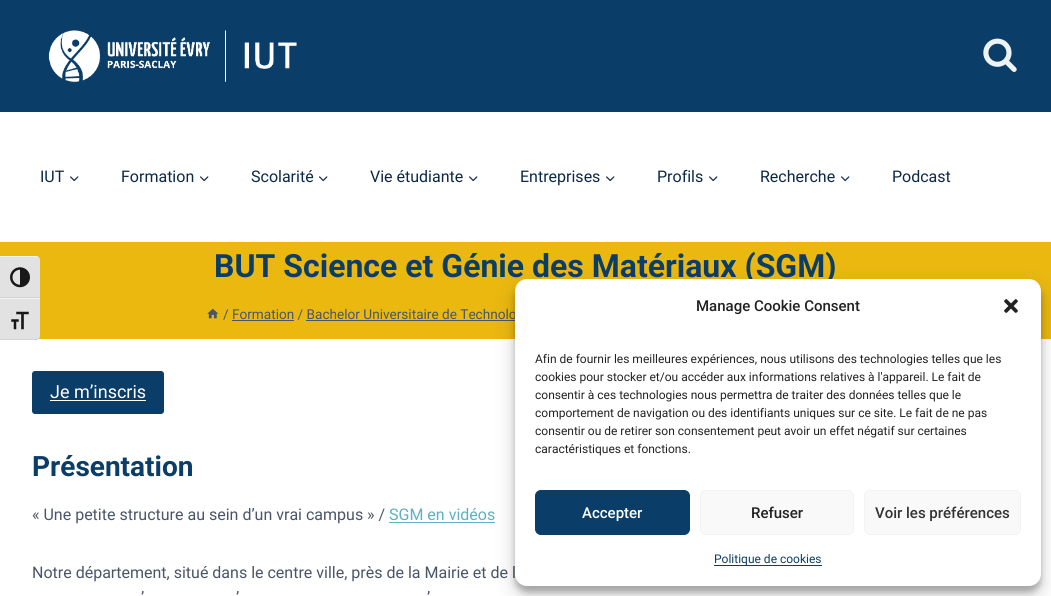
import math
import cairocffi as cairo

surface = cairo.ImageSurface(cairo.FORMAT_RGB24, 1051, 596)
ctx = cairo.Context(surface)
options = cairo.FontOptions()
options.set_hint_metrics(cairo.HINT_METRICS_OFF)
options.set_hint_style(cairo.HINT_STYLE_NONE)
ctx.set_font_options(options)
ctx.set_miter_limit(4)


def rgb(r, g, b):
    ctx.set_source_rgb(r / 255, g / 255, b / 255)


def face(family, size, italic, bold):
    ctx.select_font_face(family, cairo.FONT_SLANT_ITALIC if italic else cairo.FONT_SLANT_NORMAL, cairo.FONT_WEIGHT_BOLD if bold else cairo.FONT_WEIGHT_NORMAL)
    ctx.set_font_size(size)


def label(x, y, s):
    ctx.move_to(x, y)
    ctx.show_text(s)


def rect(x, y, w, h):
    ctx.rectangle(x, y, w, h)
    ctx.fill()


def rrect(x, y, w, h, r):
    ctx.new_sub_path()
    for i, (u, v) in enumerate([(x + w - r, y + h - r), (x + r, y + h - r), (x + r, y + r), (x + w - r, y + r)]):
        ctx.arc(u, v, r, i * math.pi / 2, (i + 1) * math.pi / 2)
    ctx.close_path()


def soft_shadow(x, y, w, h, r, blur, alpha):
    ctx.push_group_with_content(cairo.CONTENT_ALPHA)
    ctx.set_operator(cairo.OPERATOR_SOURCE)
    for i in range(15, -16, -2):
        e = blur * i / 6
        if min(w, h) + 2 * e > 0:
            ctx.set_source_rgba(0, 0, 0, alpha * math.erfc((i - 1) / 8.5) / 2)
            rrect(x - e, y - e, w + 2 * e, h + 2 * e, max(0, min(r + e + blur * .6, min(w, h) / 2 + e)))
            ctx.fill()
    ctx.mask(ctx.pop_group())


def image(path, x, y, w, h):
    ctx.save()
    ctx.set_source_surface(cairo.ImageSurface.create_from_png(path), x, y)
    ctx.rectangle(x, y, w, h)
    ctx.fill()
    ctx.restore()


rgb(255, 255, 255)
ctx.paint()
rgb(234, 184, 15)
rect(0, 242, 1051, 97)
rgb(226, 226, 226)
ctx.new_path()
ctx.move_to(0, 256)
ctx.line_to(36, 256)
ctx.curve_to(38, 256, 40, 258, 40, 260)
ctx.line_to(40, 298)
ctx.line_to(0, 298)
ctx.close_path()
ctx.fill()
rgb(245, 245, 245)
ctx.new_path()
ctx.move_to(0, 256)
ctx.line_to(0, 257)
ctx.line_to(36, 257)
ctx.curve_to(38, 257, 40, 258, 40, 260)
ctx.curve_to(40, 258, 38, 256, 36, 256)
ctx.close_path()
ctx.fill()
rgb(210, 210, 210)
rect(0, 297, 40, 1)
image('image0.png', 10, 267, 20, 21)
rgb(226, 226, 226)
ctx.new_path()
ctx.move_to(0, 298)
ctx.line_to(40, 298)
ctx.line_to(40, 336)
ctx.curve_to(40, 338, 38, 340, 36, 340)
ctx.line_to(0, 340)
ctx.close_path()
ctx.fill()
rgb(245, 245, 245)
rect(0, 298, 40, 1)
rgb(210, 210, 210)
ctx.new_path()
ctx.move_to(0, 339)
ctx.line_to(0, 340)
ctx.line_to(36, 340)
ctx.curve_to(38, 340, 40, 338, 40, 336)
ctx.curve_to(40, 338, 38, 339, 36, 339)
ctx.close_path()
ctx.fill()
image('image1.png', 11, 311, 18, 19)
rgb(10, 61, 103)
rect(0, 0, 1051, 112)
image('image2.png', 48, 30, 249, 52)
image('image3.png', 983, 38, 34, 34)
face('Roboto', 16, 0, 0)
rgb(11, 40, 70)
label(40, 182, 'IUT')
image('image4.png', 70, 176, 9, 6)
label(121, 182, 'Formation')
image('image4.png', 200, 176, 9, 6)
label(251, 182, 'Scolarité')
image('image4.png', 319, 176, 9, 6)
label(370, 182, 'Vie étudiante')
image('image4.png', 469, 176, 9, 6)
label(520, 182, 'Entreprises')
image('image4.png', 606, 176, 9, 6)
label(657, 182, 'Profils')
image('image4.png', 709, 176, 9, 6)
label(760, 182, 'Recherche')
image('image4.png', 841, 176, 9, 6)
label(892, 182, 'Podcast')
face('Roboto', 32, 0, 1)
rgb(10, 61, 103)
label(214, 277, 'BUT Science et Génie des Matériaux (SGM)')
image('image5.png', 207, 308, 12, 11)
face('Roboto', 13.6, 0, 0)
rgb(74, 85, 104)
label(223, 319, '/ Formation / Bachelor Universitaire de Technolo')
rect(232, 320, 62, 1)
rect(306, 320, 209, 1)
rgb(10, 61, 103)
rrect(32, 371, 132, 43, 3)
ctx.fill()
face('Roboto', 18, 0, 0)
rgb(255, 255, 255)
label(50, 398, 'Je m’inscris')
rect(50, 400, 96, 1)
face('Roboto', 28, 0, 1)
rgb(10, 61, 103)
label(32, 476, 'Présentation')
face('Roboto', 16, 0, 0)
rgb(74, 85, 104)
label(32, 520, '« Une petite structure au sein d’un vrai campus » /')
rgb(94, 177, 193)
label(389, 520, 'SGM en vidéos')
rect(389, 522, 106, 1)
rgb(74, 85, 104)
label(32, 578, 'Notre département, situé dans le centre ville, près de la Mairie et de l')
label(141, 603, '’')
label(236, 603, '’')
label(427, 603, '’')
rgb(0, 0, 0)
soft_shadow(515, 285, 526, 307, 12, 3, 0.23)
soft_shadow(515, 289, 526, 307, 12, 10, 0.19)
rgb(255, 255, 255)
rrect(515, 279, 526, 307, 12)
ctx.fill()
face('Roboto Medium', 15, 0, 0)
rgb(34, 34, 34)
label(696, 311, 'Manage Cookie Consent')
image('image6.png', 1004, 299, 14, 14)
face('Roboto', 12, 0, 0)
label(535, 363, 'Afin de fournir les meilleures expériences, nous utilisons des technologies telles que les')
label(535, 381, 'cookies pour stocker et/ou accéder aux informations relatives à l\'appareil. Le fait de')
label(535, 399, 'consentir à ces technologies nous permettra de traiter des données telles que le')
label(535, 417, 'comportement de navigation ou des identifiants uniques sur ce site. Le fait de ne pas')
label(535, 435, 'consentir ou de retirer son consentement peut avoir un effet négatif sur certaines')
label(535, 453, 'caractéristiques et fonctions.')
rgb(10, 61, 103)
rrect(535.5, 490.5, 154, 44, 5.5)
ctx.fill_preserve()
ctx.set_line_width(1)
ctx.stroke()
face('Roboto Medium', 15, 0, 0)
rgb(255, 255, 255)
label(582, 518, 'Accepter')
rgb(249, 249, 249)
rrect(700.5, 490.5, 153, 44, 5.5)
ctx.fill_preserve()
rgb(242, 242, 242)
ctx.stroke()
rgb(34, 34, 34)
label(751, 518, 'Refuser')
rgb(249, 249, 249)
rrect(864.5, 490.5, 156, 44, 5.5)
ctx.fill_preserve()
rgb(242, 242, 242)
ctx.stroke()
rgb(51, 51, 51)
label(875, 518, 'Voir les préférences')
rgb(10, 61, 103)
rect(714, 565, 108, 1)
face('Roboto', 12, 0, 0)
label(714, 563, 'Politique de cookies')
surface.write_to_png('render.png')
